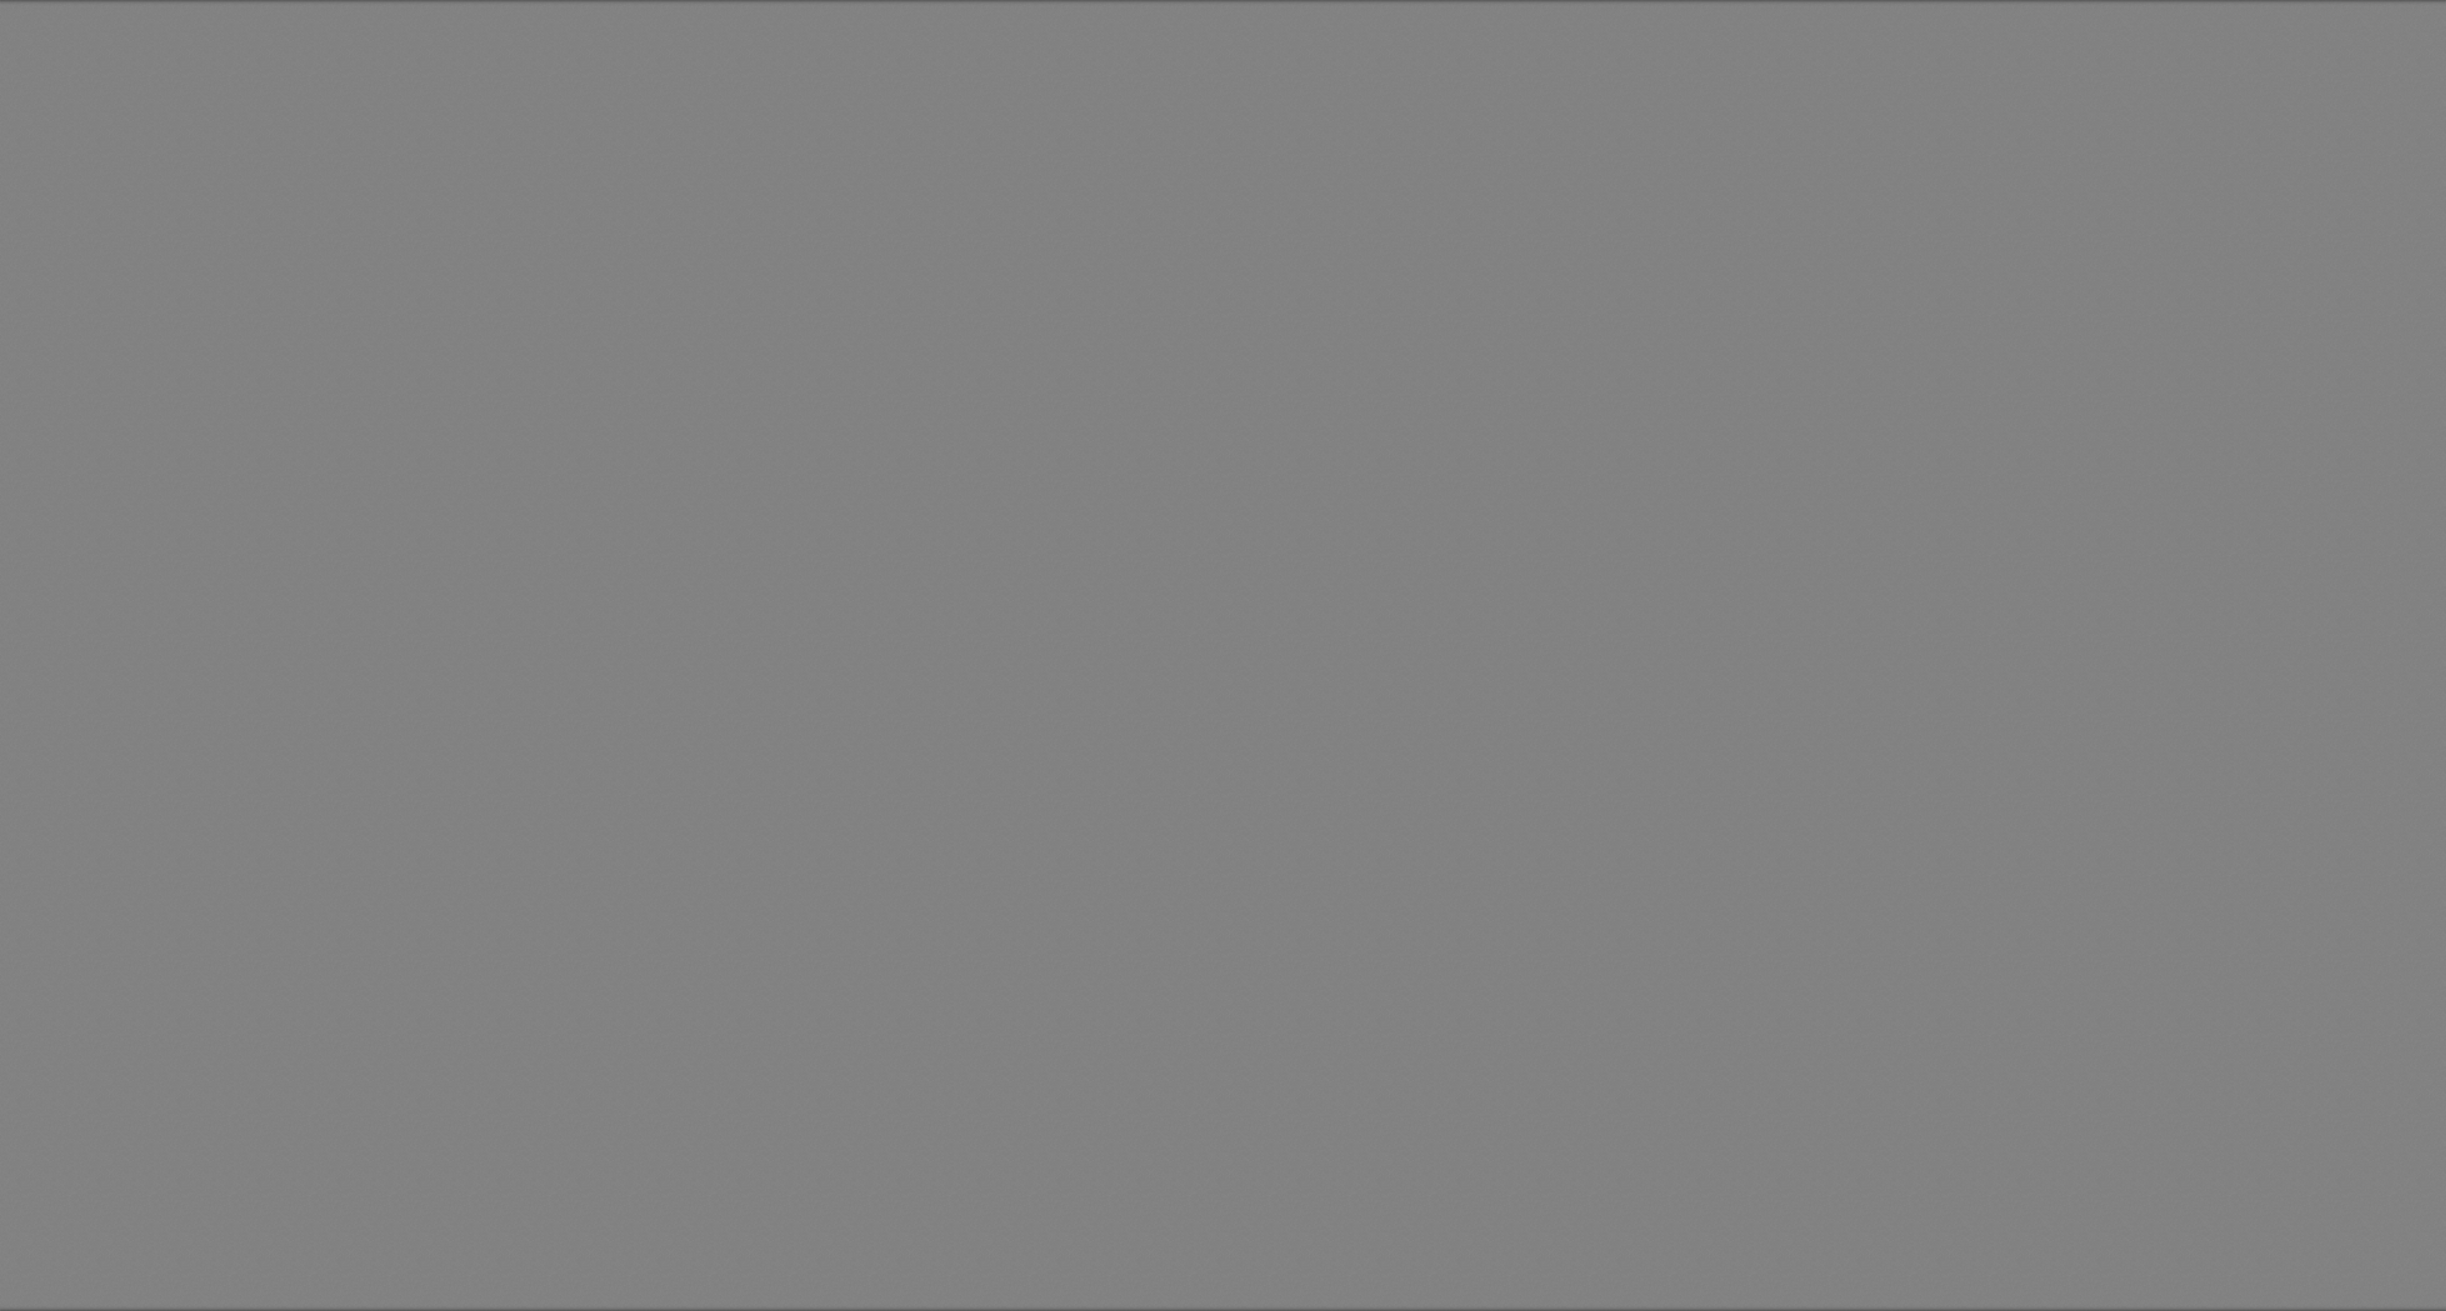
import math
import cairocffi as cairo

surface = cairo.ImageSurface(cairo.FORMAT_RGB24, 2446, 1311)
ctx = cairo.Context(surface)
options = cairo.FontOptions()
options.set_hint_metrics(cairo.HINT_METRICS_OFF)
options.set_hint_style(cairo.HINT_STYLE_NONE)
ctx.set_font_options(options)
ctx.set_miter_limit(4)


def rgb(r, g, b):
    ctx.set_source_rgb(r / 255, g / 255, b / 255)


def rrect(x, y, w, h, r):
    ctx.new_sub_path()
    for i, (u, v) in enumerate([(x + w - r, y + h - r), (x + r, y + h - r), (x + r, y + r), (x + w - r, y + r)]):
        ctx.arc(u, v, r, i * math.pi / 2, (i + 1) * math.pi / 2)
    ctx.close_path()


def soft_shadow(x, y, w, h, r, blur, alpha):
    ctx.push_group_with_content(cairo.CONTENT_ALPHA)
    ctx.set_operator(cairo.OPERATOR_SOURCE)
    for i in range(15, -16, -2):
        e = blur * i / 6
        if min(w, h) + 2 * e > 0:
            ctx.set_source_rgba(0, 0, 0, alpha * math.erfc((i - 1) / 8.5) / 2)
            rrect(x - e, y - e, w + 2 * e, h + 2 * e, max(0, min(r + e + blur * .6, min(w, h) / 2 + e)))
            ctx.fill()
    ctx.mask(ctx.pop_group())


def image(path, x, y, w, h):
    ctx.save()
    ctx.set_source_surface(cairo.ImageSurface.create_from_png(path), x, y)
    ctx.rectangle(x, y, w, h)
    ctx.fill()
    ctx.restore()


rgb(136, 136, 136)
ctx.paint()
image('image0.png', 0, 0, 2446, 1311)
rgb(50, 50, 50)
soft_shadow(0, -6, 2446, 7, 0, 2, 0.75)
soft_shadow(0, 1310, 2446, 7, 0, 2, 0.75)
surface.write_to_png('render.png')
